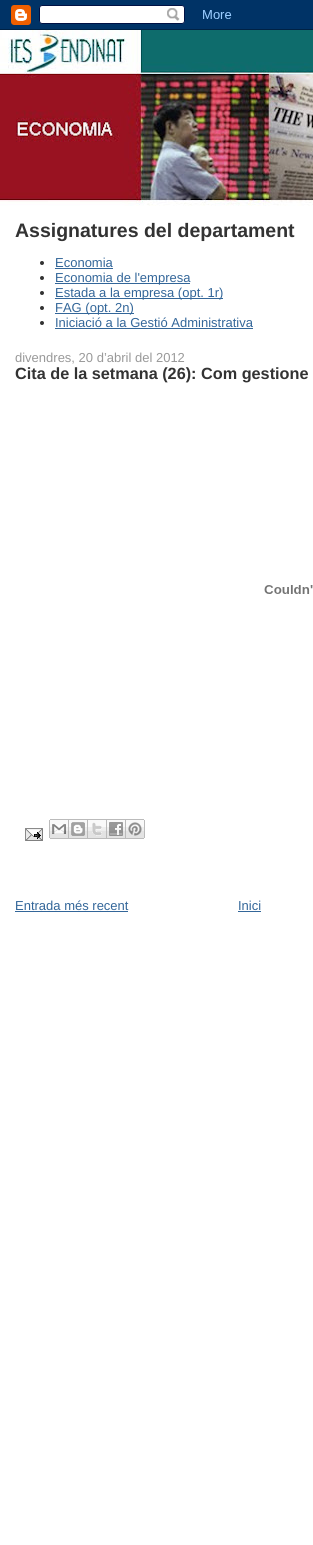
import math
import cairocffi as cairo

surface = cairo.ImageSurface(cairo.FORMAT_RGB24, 313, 1545)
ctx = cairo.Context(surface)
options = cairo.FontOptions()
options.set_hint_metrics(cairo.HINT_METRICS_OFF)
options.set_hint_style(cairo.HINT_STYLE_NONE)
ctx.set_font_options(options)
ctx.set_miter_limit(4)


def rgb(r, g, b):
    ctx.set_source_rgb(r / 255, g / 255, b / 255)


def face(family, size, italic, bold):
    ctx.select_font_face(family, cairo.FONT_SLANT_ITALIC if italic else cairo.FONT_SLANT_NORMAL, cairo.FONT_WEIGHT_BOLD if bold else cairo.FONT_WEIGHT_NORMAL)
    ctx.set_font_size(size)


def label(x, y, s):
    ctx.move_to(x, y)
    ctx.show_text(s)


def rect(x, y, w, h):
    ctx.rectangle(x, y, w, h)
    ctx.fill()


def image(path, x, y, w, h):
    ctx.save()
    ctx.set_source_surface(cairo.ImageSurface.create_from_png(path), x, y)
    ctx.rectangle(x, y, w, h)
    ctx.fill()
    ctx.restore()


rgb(255, 255, 255)
ctx.paint()
image('image0.png', 0, 0, 313, 30)
image('image1.png', 0, 30, 313, 176)
face('Liberation Sans', 19.5, 0, 1)
rgb(51, 51, 51)
label(15, 237, 'Assignatures del departament')
ctx.new_path()
ctx.arc(42, 263, 2, 0, 2 * math.pi)
ctx.fill()
face('Liberation Sans', 13, 0, 0)
rgb(51, 102, 153)
label(55, 267, 'Economia')
rect(55, 268, 58, 1)
rgb(51, 51, 51)
ctx.new_path()
ctx.arc(42, 278, 2, 0, 2 * math.pi)
ctx.fill()
rgb(51, 102, 153)
rect(55, 283, 135, 1)
label(55, 282, 'Economia de l\'empresa')
rgb(51, 51, 51)
ctx.new_path()
ctx.arc(42, 293, 2, 0, 2 * math.pi)
ctx.fill()
rgb(51, 102, 153)
rect(55, 298, 168, 1)
label(55, 297, 'Estada a la empresa (opt. 1r)')
rgb(51, 51, 51)
ctx.new_path()
ctx.arc(42, 308, 2, 0, 2 * math.pi)
ctx.fill()
rgb(51, 102, 153)
rect(55, 313, 79, 1)
label(55, 312, 'FAG (opt. 2n)')
rgb(51, 51, 51)
ctx.new_path()
ctx.arc(42, 323, 2, 0, 2 * math.pi)
ctx.fill()
rgb(51, 102, 153)
label(55, 327, 'Iniciació a la Gestió Administrativa')
rect(55, 328, 198, 1)
rgb(153, 153, 153)
label(15, 362, 'divendres, 20 d’abril del 2012')
face('Liberation Sans', 16.25, 0, 1)
rgb(51, 51, 51)
label(15, 379, 'Cita de la setmana (26): Com gestione')
image('image2.png', 264, 585, 49, 9)
image('image3.png', 25, 828, 18, 13)
image('image4.png', 49, 819, 20, 20)
image('image5.png', 69, 819, 19, 20)
image('image6.png', 88, 819, 19, 20)
image('image7.png', 107, 819, 19, 20)
image('image8.png', 126, 819, 19, 20)
face('Liberation Sans', 13, 0, 0)
rgb(51, 102, 153)
label(15, 910, 'Entrada més recent')
rect(15, 911, 113, 1)
label(238, 910, 'Inici')
rect(238, 911, 23, 1)
surface.write_to_png('render.png')
